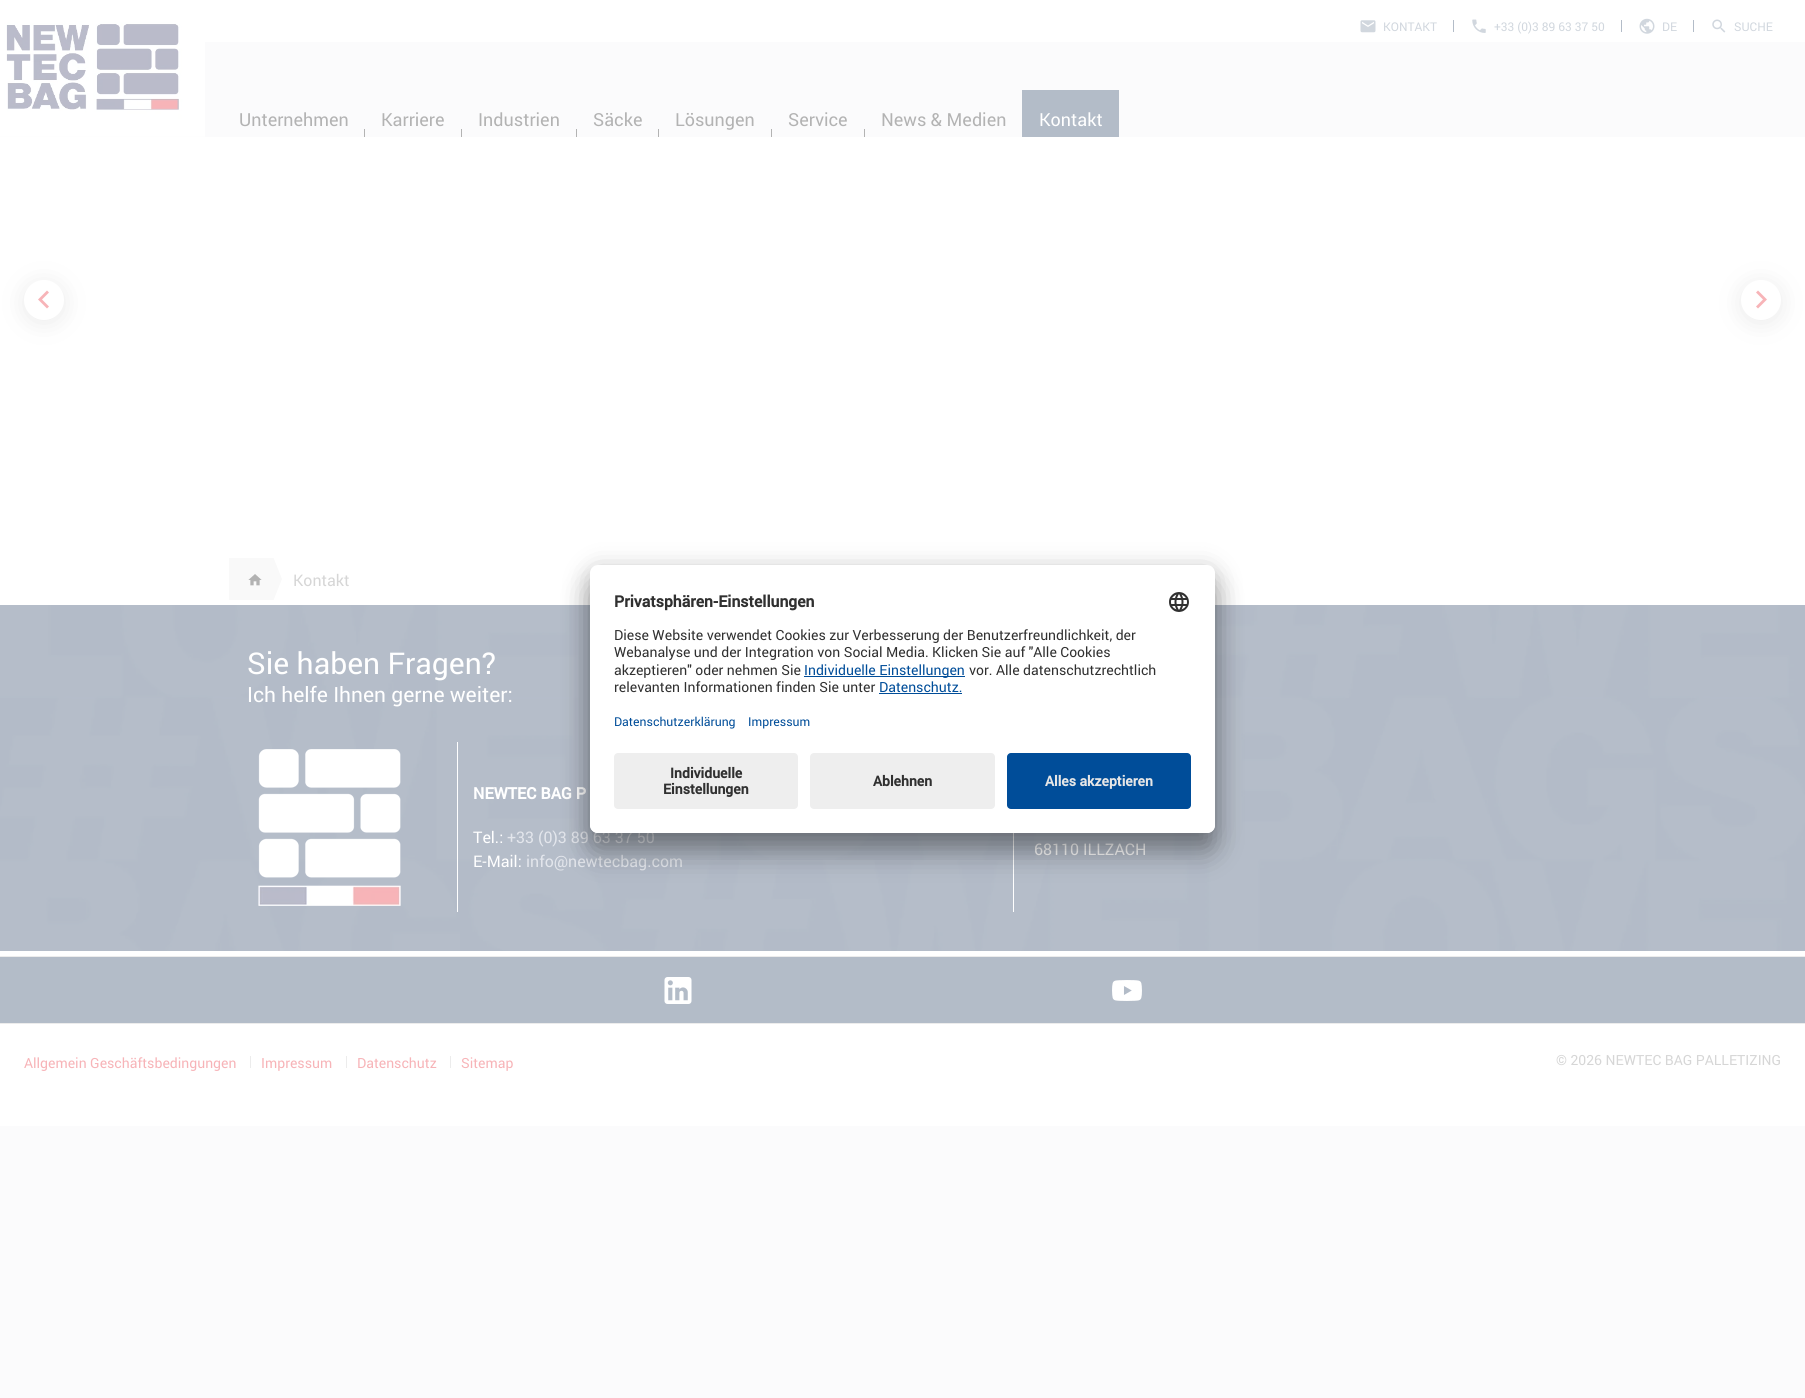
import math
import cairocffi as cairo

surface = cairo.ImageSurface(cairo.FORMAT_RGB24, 1805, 1398)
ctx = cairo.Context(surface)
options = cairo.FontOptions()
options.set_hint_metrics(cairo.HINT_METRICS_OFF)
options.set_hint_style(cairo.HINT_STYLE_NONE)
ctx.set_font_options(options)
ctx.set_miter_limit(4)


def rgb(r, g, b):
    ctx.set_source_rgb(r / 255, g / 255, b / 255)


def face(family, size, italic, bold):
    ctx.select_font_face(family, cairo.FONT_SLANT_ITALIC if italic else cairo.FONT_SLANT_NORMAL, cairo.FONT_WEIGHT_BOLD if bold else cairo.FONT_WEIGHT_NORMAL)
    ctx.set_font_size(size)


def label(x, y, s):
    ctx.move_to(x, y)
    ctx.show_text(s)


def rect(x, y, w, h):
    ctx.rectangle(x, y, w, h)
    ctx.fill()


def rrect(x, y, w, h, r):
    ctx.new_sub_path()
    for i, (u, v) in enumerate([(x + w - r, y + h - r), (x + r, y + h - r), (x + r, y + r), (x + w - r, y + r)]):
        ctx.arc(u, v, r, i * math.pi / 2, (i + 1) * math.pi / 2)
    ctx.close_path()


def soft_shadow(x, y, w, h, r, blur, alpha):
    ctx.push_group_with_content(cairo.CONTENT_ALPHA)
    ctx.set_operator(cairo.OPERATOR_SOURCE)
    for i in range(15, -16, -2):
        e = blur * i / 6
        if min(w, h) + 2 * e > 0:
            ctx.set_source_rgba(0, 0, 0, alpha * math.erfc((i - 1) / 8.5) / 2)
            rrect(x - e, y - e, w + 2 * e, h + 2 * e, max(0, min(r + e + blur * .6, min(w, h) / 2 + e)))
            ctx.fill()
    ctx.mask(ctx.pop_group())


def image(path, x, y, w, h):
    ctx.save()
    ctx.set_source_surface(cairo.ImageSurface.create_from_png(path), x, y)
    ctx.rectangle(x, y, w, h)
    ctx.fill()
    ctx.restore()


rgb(251, 251, 252)
ctx.paint()
rgb(255, 255, 255)
rect(0, 137, 1805, 989)
rect(205, 0, 1600, 42)
image('image0.png', 1360, 20, 16, 13)
face('Roboto', 12, 0, 0)
rgb(209, 215, 222)
label(1383, 31, 'KONTAKT')
rgb(179, 188, 200)
rect(1453, 20, 1, 12)
image('image1.png', 1472, 19, 14, 14)
rgb(209, 215, 222)
label(1494, 31, '+33 (0)3 89 63 37 50')
rgb(179, 188, 200)
rect(1621, 20, 1, 12)
image('image2.png', 1639, 18, 16, 16)
rgb(209, 215, 222)
label(1662, 31, 'DE')
rgb(179, 188, 200)
rect(1693, 20, 1, 12)
image('image3.png', 1712, 19, 14, 14)
rgb(209, 215, 222)
label(1734, 31, 'SUCHE')
image('image4.png', 0, 0, 205, 137)
face('Roboto', 18, 0, 0)
rgb(179, 179, 179)
label(239, 126, 'Unternehmen')
label(381, 126, 'Karriere')
rect(364, 129, 1, 8)
label(478, 126, 'Industrien')
rect(461, 129, 1, 8)
label(593, 126, 'Säcke')
rect(576, 129, 1, 8)
label(675, 126, 'Lösungen')
rect(658, 129, 1, 8)
label(788, 126, 'Service')
rect(771, 129, 1, 8)
label(881, 126, 'News & Medien')
rect(864, 129, 1, 8)
rgb(179, 188, 200)
rect(1022, 90, 97, 47)
rgb(255, 255, 255)
label(1039, 126, 'Kontakt')
rgb(179, 179, 179)
soft_shadow(24, 283, 40, 40, 20, 12, 0.25)
rgb(255, 255, 255)
ctx.arc(44, 300, 20, 0, 2 * math.pi)
ctx.fill()
rgb(247, 180, 184)
ctx.new_path()
ctx.move_to(49, 306.5)
ctx.line_to(42, 299.5)
ctx.line_to(49, 292.5)
ctx.line_to(47, 290.5)
ctx.line_to(38, 299.5)
ctx.line_to(47, 308.5)
ctx.close_path()
ctx.fill()
rgb(179, 179, 179)
soft_shadow(1741, 283, 40, 40, 20, 12, 0.25)
rgb(255, 255, 255)
ctx.arc(1761, 300, 20, 0, 2 * math.pi)
ctx.fill()
rgb(247, 180, 184)
ctx.new_path()
ctx.move_to(1756, 306.5)
ctx.line_to(1763, 299.5)
ctx.line_to(1756, 292.5)
ctx.line_to(1758, 290.5)
ctx.line_to(1767, 299.5)
ctx.line_to(1758, 308.5)
ctx.close_path()
ctx.fill()
rgb(249, 249, 249)
rect(229, 558, 43, 42)
image('image5.png', 248, 574, 14, 12)
ctx.save()
ctx.rectangle(272, 558, 1305, 42)
ctx.clip()
ctx.new_path()
ctx.move_to(272, 604)
ctx.line_to(272, 554)
ctx.line_to(282, 579)
ctx.close_path()
ctx.fill()
ctx.restore()
face('Roboto', 16, 0, 0)
rgb(214, 214, 214)
label(293, 586, 'Kontakt')
rgb(236, 236, 236)
rect(0, 1023, 1805, 1)
image('image6.png', 0, 605, 1805, 346)
face('Roboto', 30, 0, 0)
rgb(255, 255, 255)
label(247, 674, 'Sie haben Fragen?')
face('Roboto', 21, 0, 0)
label(247, 702, 'Ich helfe Ihnen gerne weiter:')
image('image7.png', 258, 749, 143, 157)
rect(1013, 833, 1, 79)
rect(457, 742, 1, 170)
face('Roboto', 16, 0, 1)
label(473, 799, 'NEWTEC BAG P')
face('Roboto', 16, 0, 0)
label(473, 843, 'Tel.:')
rgb(227, 230, 236)
label(507, 843, '+33 (0)3 89 63 37 50')
rgb(255, 255, 255)
label(473, 867, 'E-Mail:')
rgb(227, 230, 236)
label(526, 867, 'info@newtecbag.com')
rgb(255, 255, 255)
label(1034, 855, '68110 ILLZACH')
rgb(179, 188, 200)
rect(0, 957, 1805, 66)
rgb(236, 236, 236)
rect(0, 956, 1805, 1)
image('image8.png', 664, 977, 28, 27)
image('image9.png', 1112, 980, 30, 21)
face('Roboto', 14, 0, 0)
rgb(247, 180, 184)
label(24, 1068, 'Allgemein Geschäftsbedingungen')
rgb(236, 236, 236)
rect(250, 1056, 1, 12)
rgb(247, 180, 184)
label(261, 1068, 'Impressum')
rgb(236, 236, 236)
rect(346, 1056, 1, 12)
rgb(247, 180, 184)
label(357, 1068, 'Datenschutz')
rgb(236, 236, 236)
rect(450, 1056, 1, 12)
rgb(247, 180, 184)
label(461, 1068, 'Sitemap')
rgb(214, 214, 214)
label(1556, 1065, '© 2026 NEWTEC BAG PALLETIZING')
rgb(0, 0, 0)
soft_shadow(590, 585, 625, 268, 8, 14, 0.3)
soft_shadow(590, 570, 625, 268, 8, 13, 0.22)
rgb(255, 255, 255)
rrect(590, 565, 625, 268, 8)
ctx.fill()
face('Roboto', 15.75, 0, 1)
rgb(48, 48, 48)
label(614, 607, 'Privatsphären-Einstellungen')
image('image10.png', 1169, 592, 20, 20)
face('Roboto', 14, 0, 0)
label(614, 640, 'Diese Website verwendet Cookies zur Verbesserung der Benutzerfreundlichkeit, der')
label(614, 657, 'Webanalyse und der Integration von Social Media. Klicken Sie auf "Alle Cookies')
label(614, 675, 'akzeptieren" oder nehmen Sie')
rgb(0, 77, 153)
rect(804, 676, 161, 1)
label(804, 675, 'Individuelle Einstellungen')
rgb(48, 48, 48)
label(969, 675, 'vor. Alle datenschutzrechtlich')
label(614, 692, 'relevanten Informationen finden Sie unter')
rgb(0, 77, 153)
label(879, 692, 'Datenschutz.')
rect(879, 693, 83, 1)
face('Roboto', 12.25, 0, 0)
label(614, 726, 'Datenschutzerklärung')
label(748, 726, 'Impressum')
rgb(255, 255, 255)
ctx.new_path()
ctx.move_to(590, 745)
ctx.line_to(1215, 745)
ctx.line_to(1215, 825)
ctx.curve_to(1215, 829.5, 1211.5, 833, 1207, 833)
ctx.line_to(598, 833)
ctx.curve_to(593.5, 833, 590, 829.5, 590, 825)
ctx.close_path()
ctx.fill()
rgb(238, 238, 238)
rrect(614, 753, 184, 56, 4)
ctx.fill()
face('Roboto', 14, 0, 1)
rgb(48, 48, 48)
label(670, 778, 'Individuelle')
label(663, 794, 'Einstellungen')
rgb(238, 238, 238)
rrect(810, 753, 185, 56, 4)
ctx.fill()
rgb(48, 48, 48)
label(873, 786, 'Ablehnen')
rgb(0, 77, 153)
rrect(1007, 753, 184, 56, 4)
ctx.fill()
rgb(230, 230, 230)
label(1045, 786, 'Alles akzeptieren')
surface.write_to_png('render.png')
